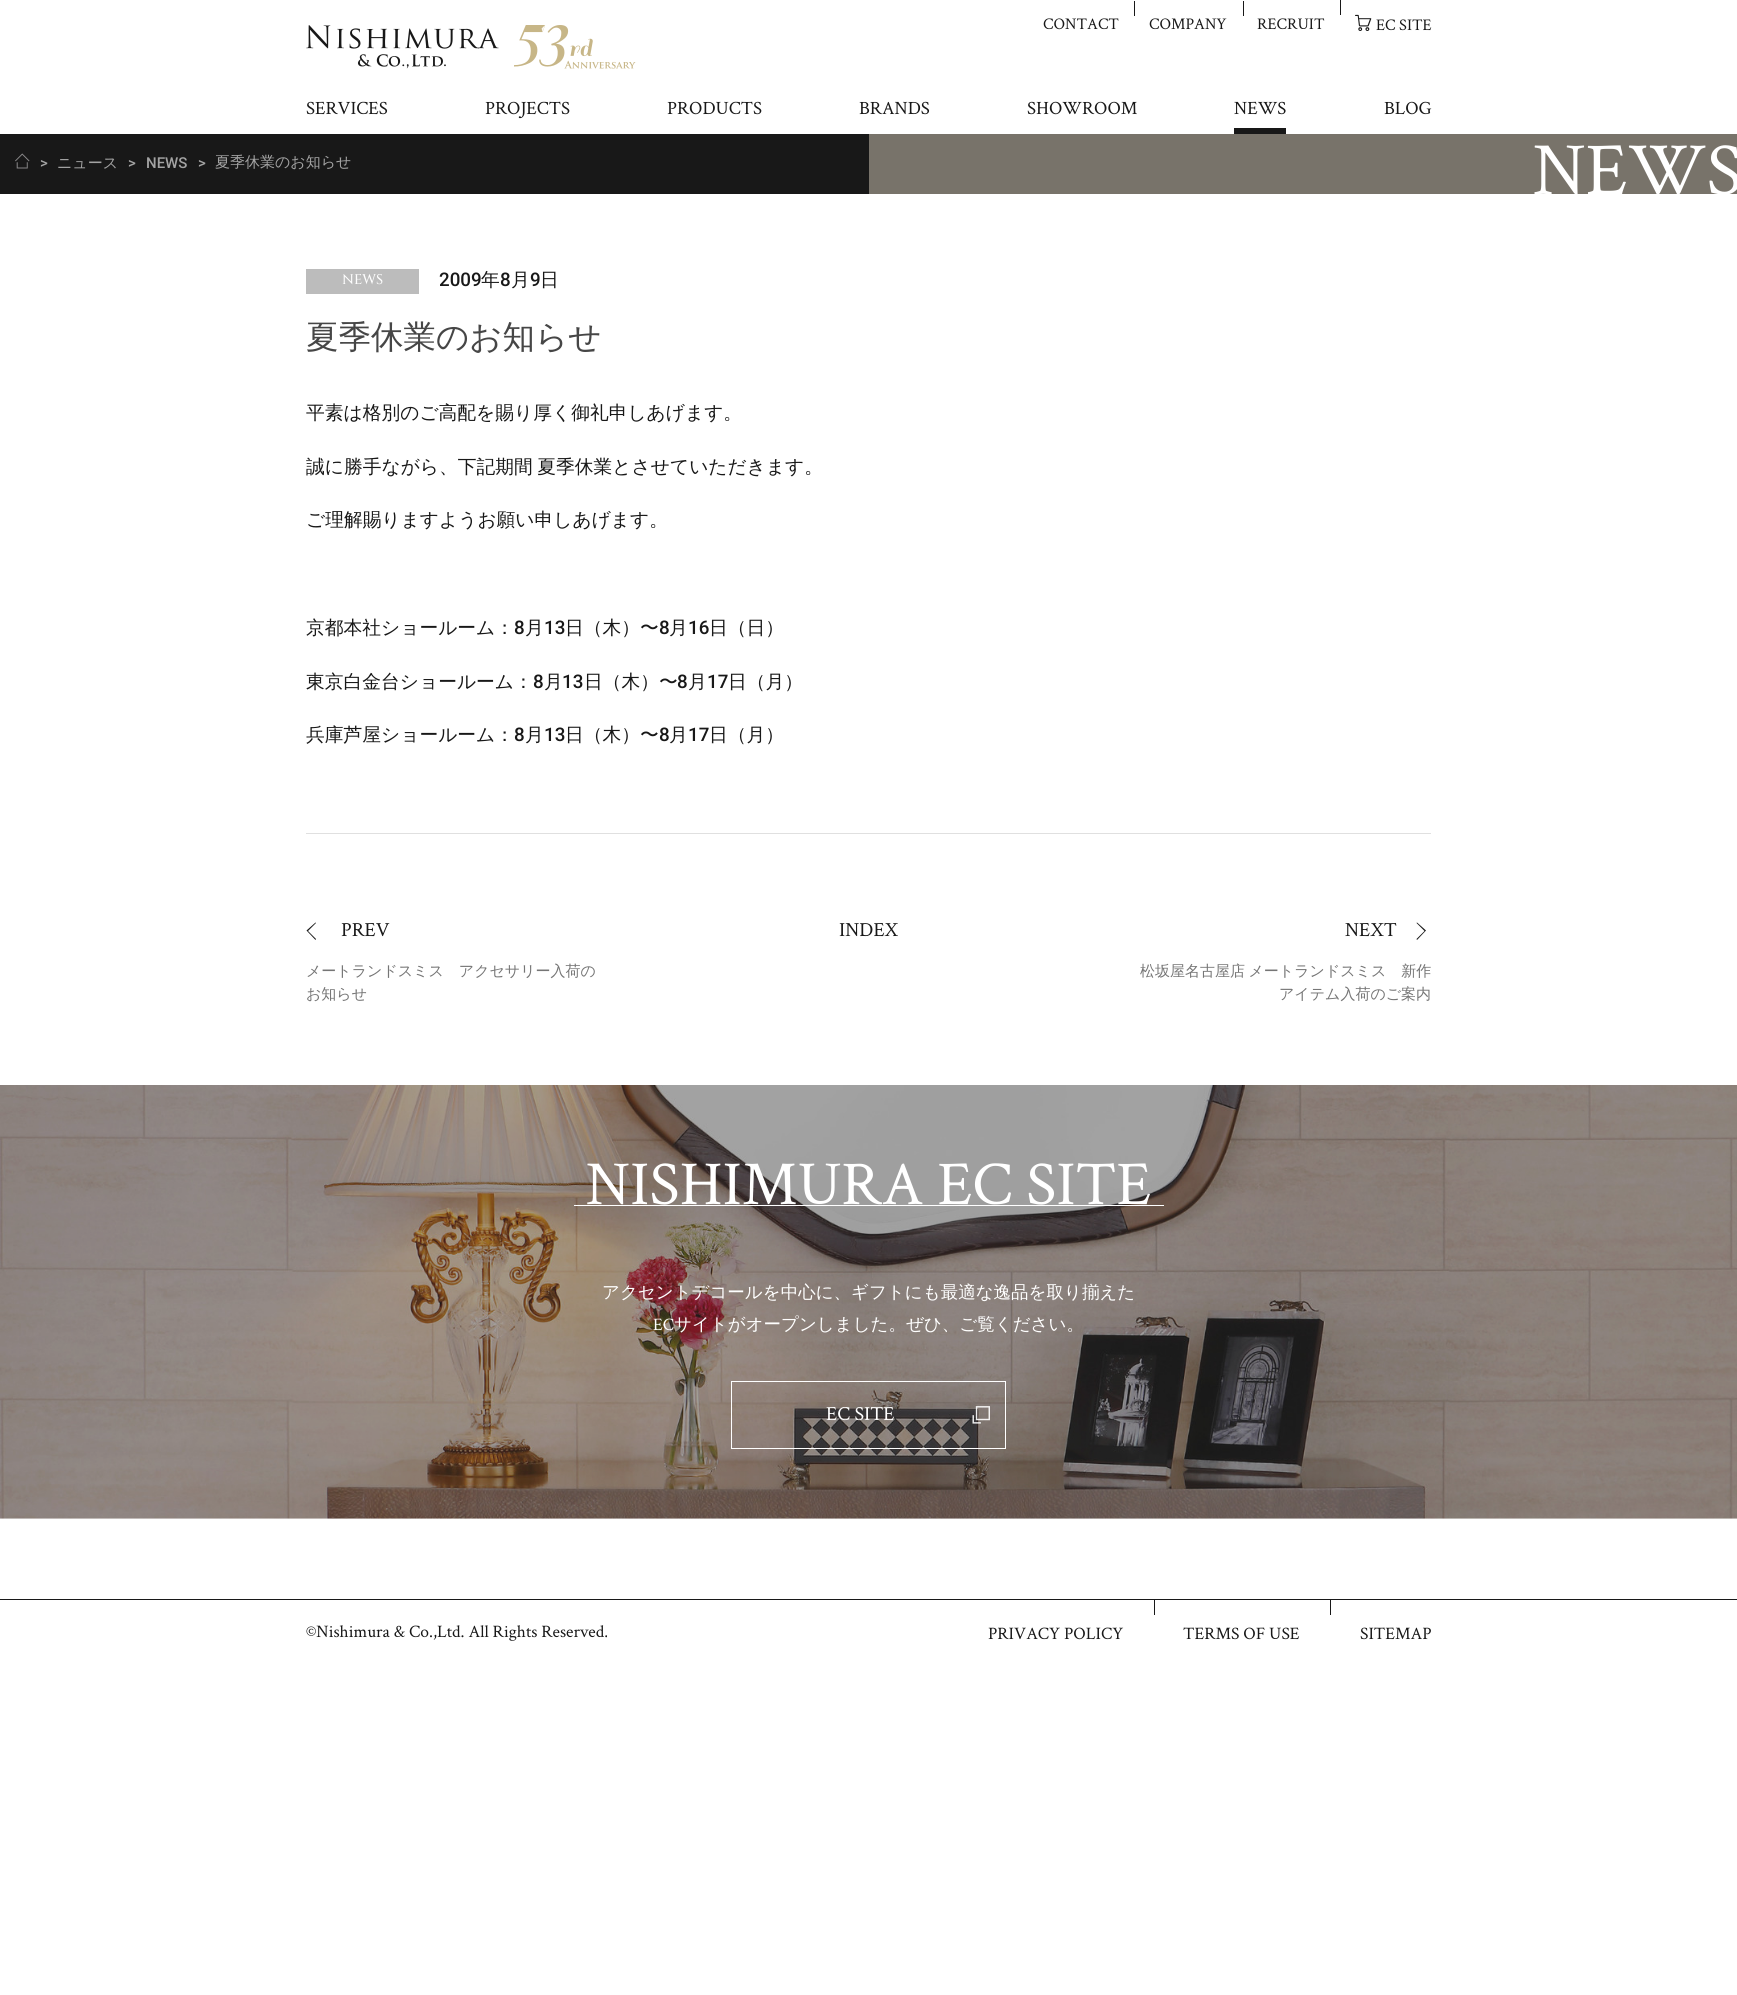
import math
import cairocffi as cairo

surface = cairo.ImageSurface(cairo.FORMAT_RGB24, 1737, 1995)
ctx = cairo.Context(surface)
options = cairo.FontOptions()
options.set_hint_metrics(cairo.HINT_METRICS_OFF)
options.set_hint_style(cairo.HINT_STYLE_NONE)
ctx.set_font_options(options)
ctx.set_miter_limit(4)


def rgb(r, g, b):
    ctx.set_source_rgb(r / 255, g / 255, b / 255)


def face(family, size, italic, bold):
    ctx.select_font_face(family, cairo.FONT_SLANT_ITALIC if italic else cairo.FONT_SLANT_NORMAL, cairo.FONT_WEIGHT_BOLD if bold else cairo.FONT_WEIGHT_NORMAL)
    ctx.set_font_size(size)


def label(x, y, s):
    ctx.move_to(x, y)
    ctx.show_text(s)


def tracked(x, y, s, letter, word):
    ctx.move_to(x, y)
    for ch in s:
        ctx.show_text(ch)
        ctx.rel_move_to(letter + word * (ch == ' '), 0)


def rect(x, y, w, h):
    ctx.rectangle(x, y, w, h)
    ctx.fill()


def image(path, x, y, w, h):
    ctx.save()
    ctx.set_source_surface(cairo.ImageSurface.create_from_png(path), x, y)
    ctx.rectangle(x, y, w, h)
    ctx.fill()
    ctx.restore()


rgb(255, 255, 255)
ctx.paint()
image('image0.png', 306, 25, 193, 44)
image('image1.png', 514, 25, 122, 44)
face('Crimson Text', 16.25, 0, 0)
rgb(24, 24, 24)
label(1043, 29, 'CONTACT')
rect(1134, 1, 1, 15)
label(1149, 29, 'COMPANY')
rect(1243, 1, 1, 15)
label(1257, 29, 'RECRUIT')
rect(1340, 0, 1, 15)
image('image2.png', 1355, 14, 17, 17)
label(1376, 30, 'EC SITE')
face('Crimson Text', 18.75, 0, 0)
label(306, 114, 'SERVICES')
label(485, 114, 'PROJECTS')
label(667, 114, 'PRODUCTS')
label(859, 114, 'BRANDS')
label(1027, 114, 'SHOWROOM')
rect(1234, 128, 52, 6)
label(1234, 114, 'NEWS')
label(1384, 114, 'BLOG')
rect(0, 134, 869, 60)
image('image3.png', 15, 153, 15, 16)
face('Roboto Medium', 15, 0, 0)
rgb(163, 163, 163)
label(40, 168, '>')
face('WenQuanYi Zen Hei Medium', 15, 0, 0)
label(57, 168, 'ニュース')
face('Roboto Medium', 15, 0, 0)
label(128, 168, '>')
label(146, 168, 'NEWS')
label(198, 168, '>')
face('WenQuanYi Zen Hei Medium', 15, 0, 0)
label(215, 167, '夏季休業のお知らせ')
rgb(120, 115, 106)
rect(869, 134, 868, 60)
face('Crimson Text', 75, 0, 0)
rgb(255, 255, 255)
label(1533, 194, 'NEWS')
rgb(188, 188, 188)
rect(306, 269, 113, 25)
face('Cinzel Medium', 14, 0, 0)
rgb(255, 255, 255)
label(342, 284, 'NEWS')
face('Roboto Medium', 18.75, 0, 0)
rgb(24, 24, 24)
label(439, 286, '2009')
face('WenQuanYi Zen Hei Medium', 18.75, 0, 0)
label(481, 286, '年')
face('Roboto Medium', 18.75, 0, 0)
label(500, 286, '8')
face('WenQuanYi Zen Hei Medium', 18.75, 0, 0)
label(511, 286, '月')
face('Roboto Medium', 18.75, 0, 0)
label(530, 286, '9')
face('WenQuanYi Zen Hei Medium', 18.75, 0, 0)
label(540, 286, '日')
face('WenQuanYi Zen Hei Medium', 32.5, 0, 0)
rgb(70, 70, 70)
label(306, 348, '夏季休業のお知らせ')
face('WenQuanYi Zen Hei Medium', 18.75, 0, 0)
rgb(24, 24, 24)
label(306, 419, '平素は格別のご高配を賜り厚く御礼申しあげます。')
tracked(306, 473, '誠に勝手ながら、下記期間 夏季休業とさせていただきます。', 0, -1)
label(306, 526, 'ご理解賜りますようお願い申しあげます。')
label(306, 634, '京都本社ショールーム：')
face('Roboto Medium', 18.75, 0, 0)
label(514, 634, '8')
face('WenQuanYi Zen Hei Medium', 18.75, 0, 0)
label(525, 634, '月')
face('Roboto Medium', 18.75, 0, 0)
label(544, 634, '13')
face('WenQuanYi Zen Hei Medium', 18.75, 0, 0)
label(565, 634, '日（木）〜')
face('Roboto Medium', 18.75, 0, 0)
label(659, 634, '8')
face('WenQuanYi Zen Hei Medium', 18.75, 0, 0)
label(669, 634, '月')
face('Roboto Medium', 18.75, 0, 0)
label(688, 634, '16')
face('WenQuanYi Zen Hei Medium', 18.75, 0, 0)
label(709, 634, '日（日）')
label(306, 688, '東京白金台ショールーム：')
face('Roboto Medium', 18.75, 0, 0)
label(533, 688, '8')
face('WenQuanYi Zen Hei Medium', 18.75, 0, 0)
label(544, 688, '月')
face('Roboto Medium', 18.75, 0, 0)
label(562, 688, '13')
face('WenQuanYi Zen Hei Medium', 18.75, 0, 0)
label(584, 688, '日（木）〜')
face('Roboto Medium', 18.75, 0, 0)
label(677, 688, '8')
face('WenQuanYi Zen Hei Medium', 18.75, 0, 0)
label(688, 688, '月')
face('Roboto Medium', 18.75, 0, 0)
label(707, 688, '17')
face('WenQuanYi Zen Hei Medium', 18.75, 0, 0)
label(728, 688, '日（月）')
label(306, 741, '兵庫芦屋ショールーム：')
face('Roboto Medium', 18.75, 0, 0)
label(514, 741, '8')
face('WenQuanYi Zen Hei Medium', 18.75, 0, 0)
label(525, 741, '月')
face('Roboto Medium', 18.75, 0, 0)
label(544, 741, '13')
face('WenQuanYi Zen Hei Medium', 18.75, 0, 0)
label(565, 741, '日（木）〜')
face('Roboto Medium', 18.75, 0, 0)
label(659, 741, '8')
face('WenQuanYi Zen Hei Medium', 18.75, 0, 0)
label(669, 741, '月')
face('Roboto Medium', 18.75, 0, 0)
label(688, 741, '17')
face('WenQuanYi Zen Hei Medium', 18.75, 0, 0)
label(709, 741, '日（月）')
rgb(224, 224, 224)
rect(306, 833, 1125, 1)
rgb(24, 24, 24)
ctx.new_path()
ctx.move_to(316, 939)
ctx.line_to(308, 931)
ctx.line_to(316, 923)
ctx.line_to(315.5, 922.5)
ctx.line_to(306.5, 930.5)
ctx.line_to(315.5, 940)
ctx.close_path()
ctx.fill()
face('Crimson Text', 20, 0, 0)
label(341, 936, 'PREV')
face('WenQuanYi Zen Hei Medium', 15, 0, 0)
rgb(117, 117, 117)
label(306, 976, 'メートランドスミス　アクセサリー入荷の')
label(306, 999, 'お知らせ')
face('Crimson Text', 20, 0, 0)
rgb(24, 24, 24)
label(839, 936, 'INDEX')
label(1345, 936, 'NEXT')
ctx.new_path()
ctx.move_to(1416.5, 939)
ctx.line_to(1424.5, 931)
ctx.line_to(1416.5, 923)
ctx.line_to(1417, 922.5)
ctx.line_to(1426, 930.5)
ctx.line_to(1417, 940)
ctx.close_path()
ctx.fill()
face('WenQuanYi Zen Hei Medium', 15, 0, 0)
rgb(117, 117, 117)
tracked(1140, 976, '松坂屋名古屋店 メートランドスミス　新作', 0, -1)
label(1279, 999, 'アイテム入荷のご案内')
image('image4.png', 0, 1085, 1737, 434)
face('Crimson Text', 62.5, 0, 0)
rgb(255, 255, 255)
label(586, 1204, 'NISHIMURA EC SITE')
rect(574, 1205, 590, 1)
face('WenQuanYi Zen Hei Medium', 17.5, 0, 0)
label(602, 1298, 'アクセントデコールを中心に、ギフトにも最適な逸品を取り揃えた')
face('Crimson Text', 17.5, 0, 0)
label(653, 1330, 'EC')
face('WenQuanYi Zen Hei Medium', 17.5, 0, 0)
label(674, 1330, 'サイトがオープンしました。ぜひ、ご覧ください。')
ctx.rectangle(731.5, 1381.5, 274, 67)
ctx.set_line_width(1)
ctx.stroke()
face('Crimson Text', 20, 0, 0)
label(826, 1420, 'EC SITE')
image('image5.png', 972, 1406, 18, 18)
rgb(24, 24, 24)
rect(0, 1599, 1737, 1)
face('Crimson Text', 17.5, 0, 0)
label(306, 1637, '©Nishimura & Co.,Ltd. All Rights Reserved.')
label(988, 1639, 'PRIVACY POLICY')
rect(1154, 1600, 1, 15)
label(1183, 1639, 'TERMS OF USE')
rect(1330, 1600, 1, 15)
label(1360, 1639, 'SITEMAP')
surface.write_to_png('render.png')
